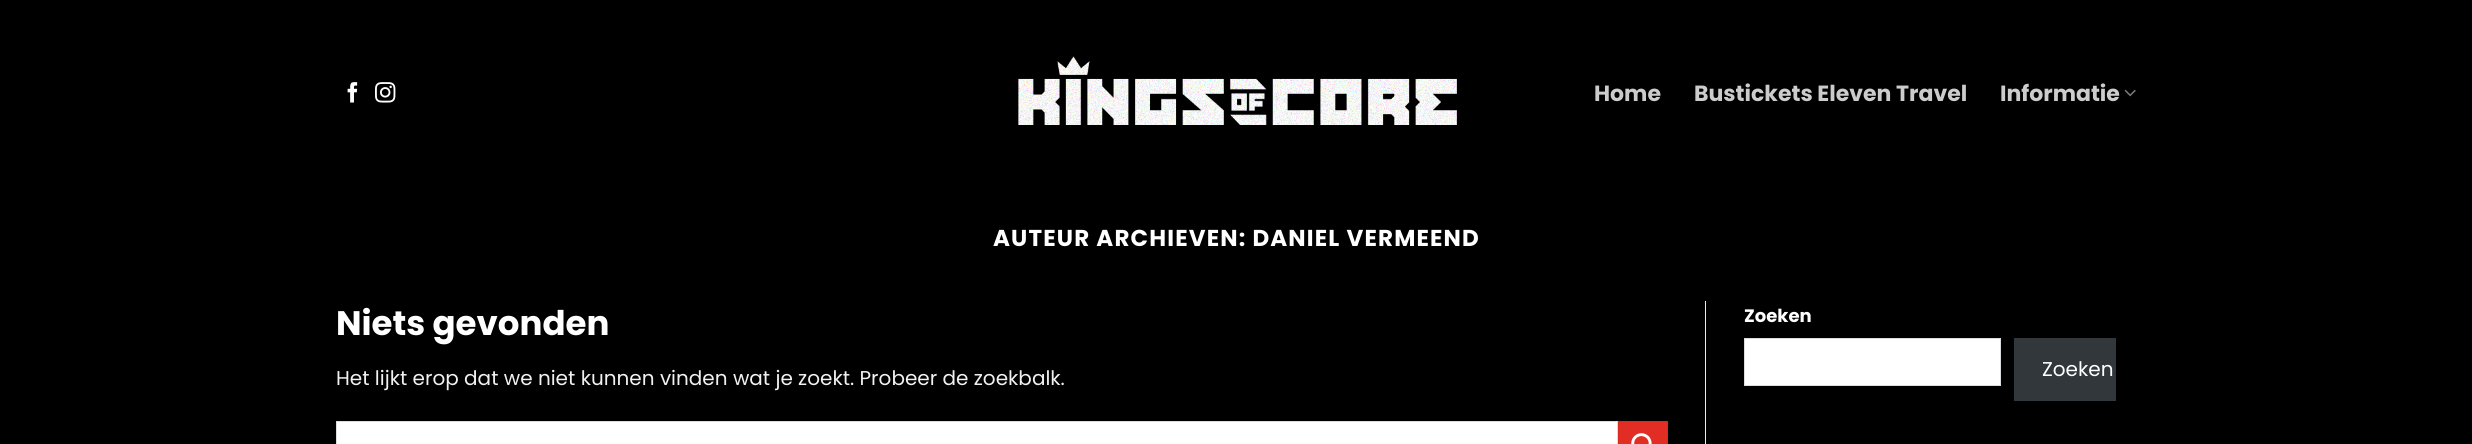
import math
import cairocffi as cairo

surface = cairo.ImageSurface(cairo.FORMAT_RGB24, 2472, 444)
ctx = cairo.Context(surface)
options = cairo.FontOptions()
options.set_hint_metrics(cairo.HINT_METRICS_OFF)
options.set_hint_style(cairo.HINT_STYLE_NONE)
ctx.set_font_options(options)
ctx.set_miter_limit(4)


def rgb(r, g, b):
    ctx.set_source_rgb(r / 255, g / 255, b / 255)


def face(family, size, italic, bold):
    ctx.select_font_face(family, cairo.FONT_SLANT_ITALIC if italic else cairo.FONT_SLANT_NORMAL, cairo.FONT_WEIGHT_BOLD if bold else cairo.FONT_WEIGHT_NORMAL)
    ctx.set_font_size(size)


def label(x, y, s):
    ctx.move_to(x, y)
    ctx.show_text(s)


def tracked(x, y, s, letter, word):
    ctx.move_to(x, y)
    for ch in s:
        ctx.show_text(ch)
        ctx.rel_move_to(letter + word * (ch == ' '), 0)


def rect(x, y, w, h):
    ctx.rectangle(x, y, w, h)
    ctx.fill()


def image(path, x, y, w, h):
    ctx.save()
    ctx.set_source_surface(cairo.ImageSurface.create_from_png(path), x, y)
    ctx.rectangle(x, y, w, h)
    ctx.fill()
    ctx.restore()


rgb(0, 0, 0)
ctx.paint()
image('image0.png', 347, 82, 11, 21)
image('image1.png', 375, 82, 21, 21)
image('image2.png', 1018, 56, 439, 69)
face('Poppins', 22, 0, 1)
rgb(204, 204, 204)
label(1594, 101, 'Home')
label(1694, 101, 'Bustickets Eleven Travel')
label(2000, 101, 'Informatie')
image('image3.png', 2124, 89, 12, 8)
face('Poppins', 23, 0, 1)
rgb(255, 255, 255)
tracked(993, 246, 'AUTEUR ARCHIEVEN: DANIEL VERMEEND', 1.15, 0)
face('Poppins', 34, 0, 1)
label(336, 335, 'Niets gevonden')
face('Poppins', 20, 0, 0)
rgb(241, 241, 241)
label(336, 385, 'Het lijkt erop dat we niet kunnen vinden wat je zoekt. Probeer de zoekbalk.')
rgb(255, 255, 255)
ctx.rectangle(336.5, 421.5, 1281, 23)
ctx.fill_preserve()
rgb(221, 221, 221)
ctx.set_line_width(1)
ctx.stroke()
rgb(226, 45, 36)
ctx.rectangle(1618.5, 421.5, 49, 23)
ctx.fill_preserve()
rgb(215, 43, 34)
ctx.stroke()
image('image4.png', 1631, 433, 21, 11)
rgb(236, 236, 236)
rect(1705, 301, 1, 143)
face('Poppins', 18, 0, 1)
rgb(255, 255, 255)
label(1744, 322, 'Zoeken')
ctx.rectangle(1744.5, 338.5, 256, 47)
ctx.fill_preserve()
rgb(221, 221, 221)
ctx.stroke()
rgb(50, 55, 60)
rect(2014, 338, 102, 63)
face('Poppins', 20, 0, 0)
rgb(255, 255, 255)
label(2042, 376, 'Zoeken')
surface.write_to_png('render.png')
